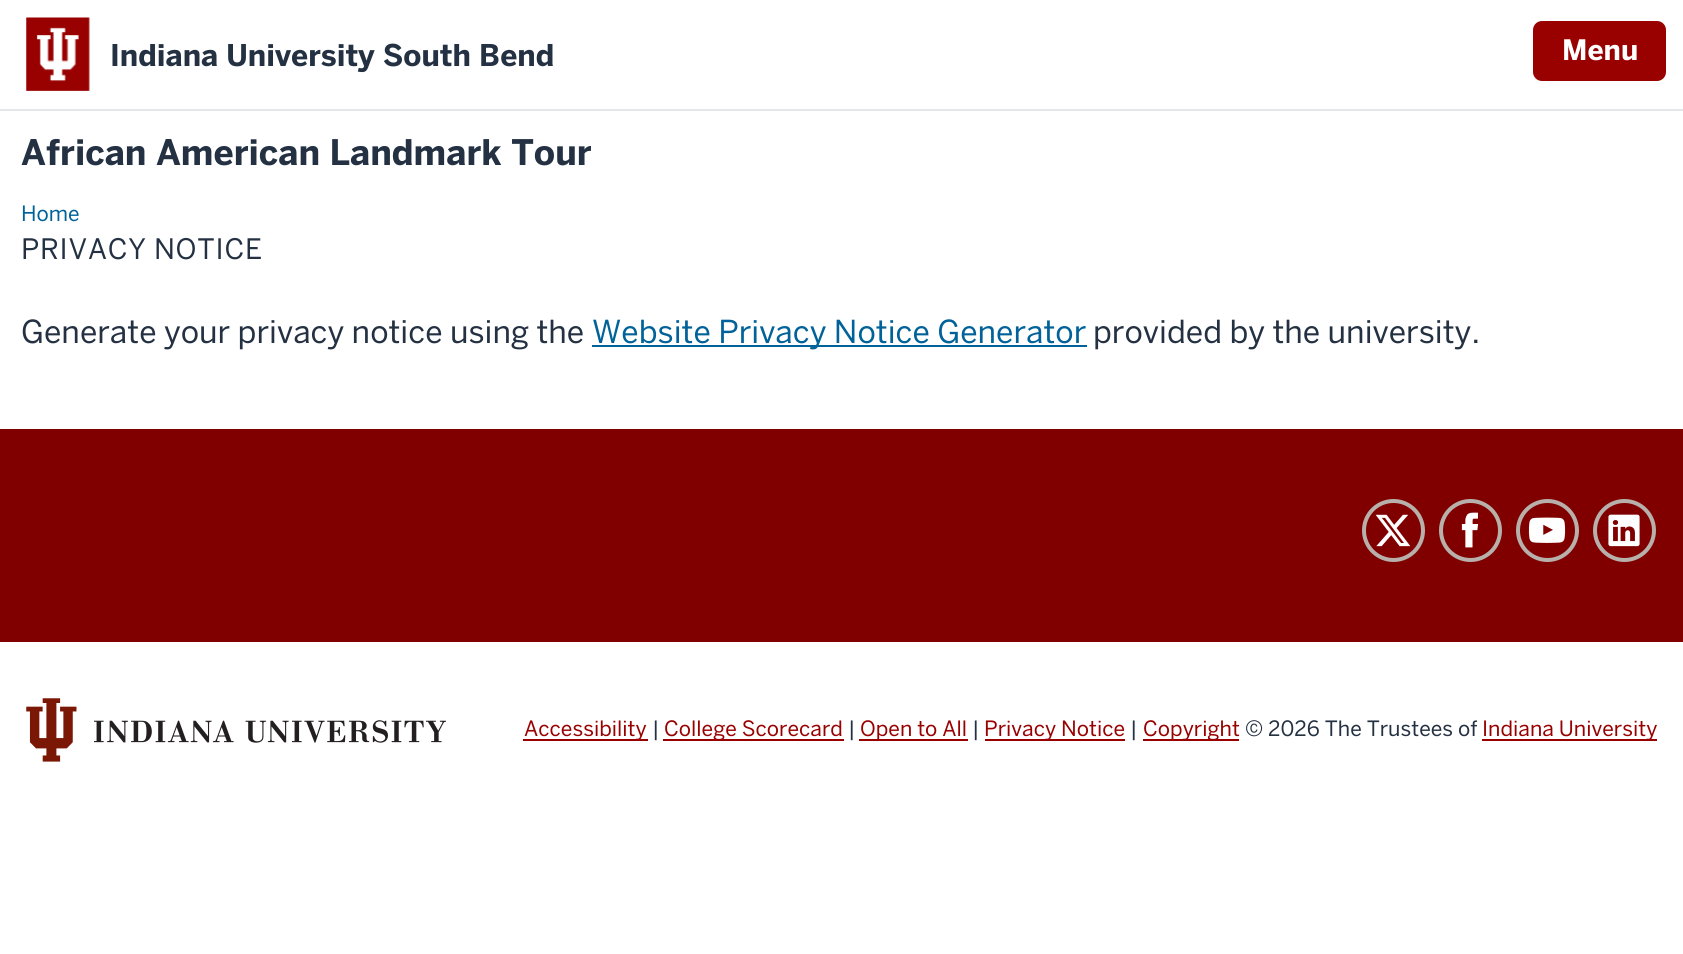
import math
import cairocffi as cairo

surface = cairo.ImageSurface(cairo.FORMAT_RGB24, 1683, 954)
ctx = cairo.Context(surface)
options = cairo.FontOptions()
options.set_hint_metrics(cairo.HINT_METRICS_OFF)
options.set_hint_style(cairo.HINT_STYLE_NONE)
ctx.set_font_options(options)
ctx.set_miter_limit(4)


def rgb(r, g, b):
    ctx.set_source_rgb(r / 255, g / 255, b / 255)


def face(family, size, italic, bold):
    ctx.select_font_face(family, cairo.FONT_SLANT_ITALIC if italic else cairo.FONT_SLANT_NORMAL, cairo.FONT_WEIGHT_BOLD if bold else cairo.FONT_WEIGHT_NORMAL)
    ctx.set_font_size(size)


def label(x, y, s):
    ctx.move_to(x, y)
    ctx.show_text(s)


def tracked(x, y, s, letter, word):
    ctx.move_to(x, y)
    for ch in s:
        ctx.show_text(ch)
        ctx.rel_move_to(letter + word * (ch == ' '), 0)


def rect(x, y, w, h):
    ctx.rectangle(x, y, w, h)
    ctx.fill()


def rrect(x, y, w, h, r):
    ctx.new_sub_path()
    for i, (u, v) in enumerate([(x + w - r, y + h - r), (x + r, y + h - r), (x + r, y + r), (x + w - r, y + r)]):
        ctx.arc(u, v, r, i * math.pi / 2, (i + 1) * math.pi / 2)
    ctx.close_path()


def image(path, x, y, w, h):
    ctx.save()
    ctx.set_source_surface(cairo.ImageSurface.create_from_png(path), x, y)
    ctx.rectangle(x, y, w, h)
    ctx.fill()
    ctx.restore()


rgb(255, 255, 255)
ctx.paint()
rgb(226, 231, 233)
rect(0, 109, 1683, 2)
image('image0.png', 26, 17, 64, 74)
face('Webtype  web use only', 29.75, 0, 1)
rgb(36, 49, 66)
label(110, 66, 'Indiana University South Bend')
rgb(153, 0, 0)
rrect(1533, 21, 133, 60, 9)
ctx.fill()
face('Webtype  web use only', 28, 0, 1)
rgb(255, 255, 255)
label(1562, 60, 'Menu')
face('Webtype  web use only', 35, 0, 1)
rgb(36, 49, 66)
label(21, 165, 'African American Landmark Tour')
face('Webtype  web use only', 21, 0, 0)
rgb(0, 98, 152)
label(21, 221, 'Home')
face('Webtype  web use only', 28, 0, 0)
rgb(36, 49, 66)
tracked(21, 259, 'PRIVACY NOTICE', 0.75, 0)
face('Webtype  web use only', 31.5, 0, 0)
label(21, 343, 'Generate your privacy notice using the')
rgb(0, 98, 152)
rect(592, 345, 495, 2)
label(592, 343, 'Website Privacy Notice Generator')
rgb(36, 49, 66)
label(1093, 343, 'provided by the university.')
rgb(128, 0, 0)
rect(0, 429, 1683, 213)
ctx.new_path()
ctx.arc(1393.5, 530.5, 29.5, 0, 2 * math.pi)
rgb(184, 176, 171)
ctx.set_line_width(4)
ctx.stroke()
image('image1.png', 1375, 514, 36, 33)
ctx.arc(1470.5, 530.5, 29.5, 0, 2 * math.pi)
ctx.stroke()
image('image2.png', 1461, 512, 18, 36)
ctx.arc(1547.5, 530.5, 29.5, 0, 2 * math.pi)
ctx.stroke()
image('image3.png', 1528, 517, 38, 26)
ctx.arc(1624.5, 530.5, 29.5, 0, 2 * math.pi)
ctx.stroke()
image('image4.png', 1608, 514, 32, 33)
image('image5.png', 26, 698, 420, 64)
rgb(153, 0, 0)
rect(523, 739, 125, 2)
face('Webtype  web use only', 21, 0, 0)
label(524, 736, 'Accessibility')
rgb(36, 49, 66)
label(652, 736, '|')
rgb(153, 0, 0)
rect(663, 739, 181, 2)
label(664, 736, 'College Scorecard')
rgb(36, 49, 66)
label(848, 736, '|')
rgb(153, 0, 0)
rect(859, 739, 109, 2)
label(860, 736, 'Open to All')
rgb(36, 49, 66)
label(972, 736, '|')
rgb(153, 0, 0)
rect(985, 739, 140, 2)
label(984, 736, 'Privacy Notice')
rgb(36, 49, 66)
label(1130, 736, '|')
rgb(153, 0, 0)
rect(1143, 739, 96, 2)
label(1143, 736, 'Copyright')
rgb(36, 49, 66)
label(1245, 736, '© 2026 The Trustees of')
rgb(153, 0, 0)
rect(1482, 739, 175, 2)
label(1482, 736, 'Indiana University')
surface.write_to_png('render.png')
